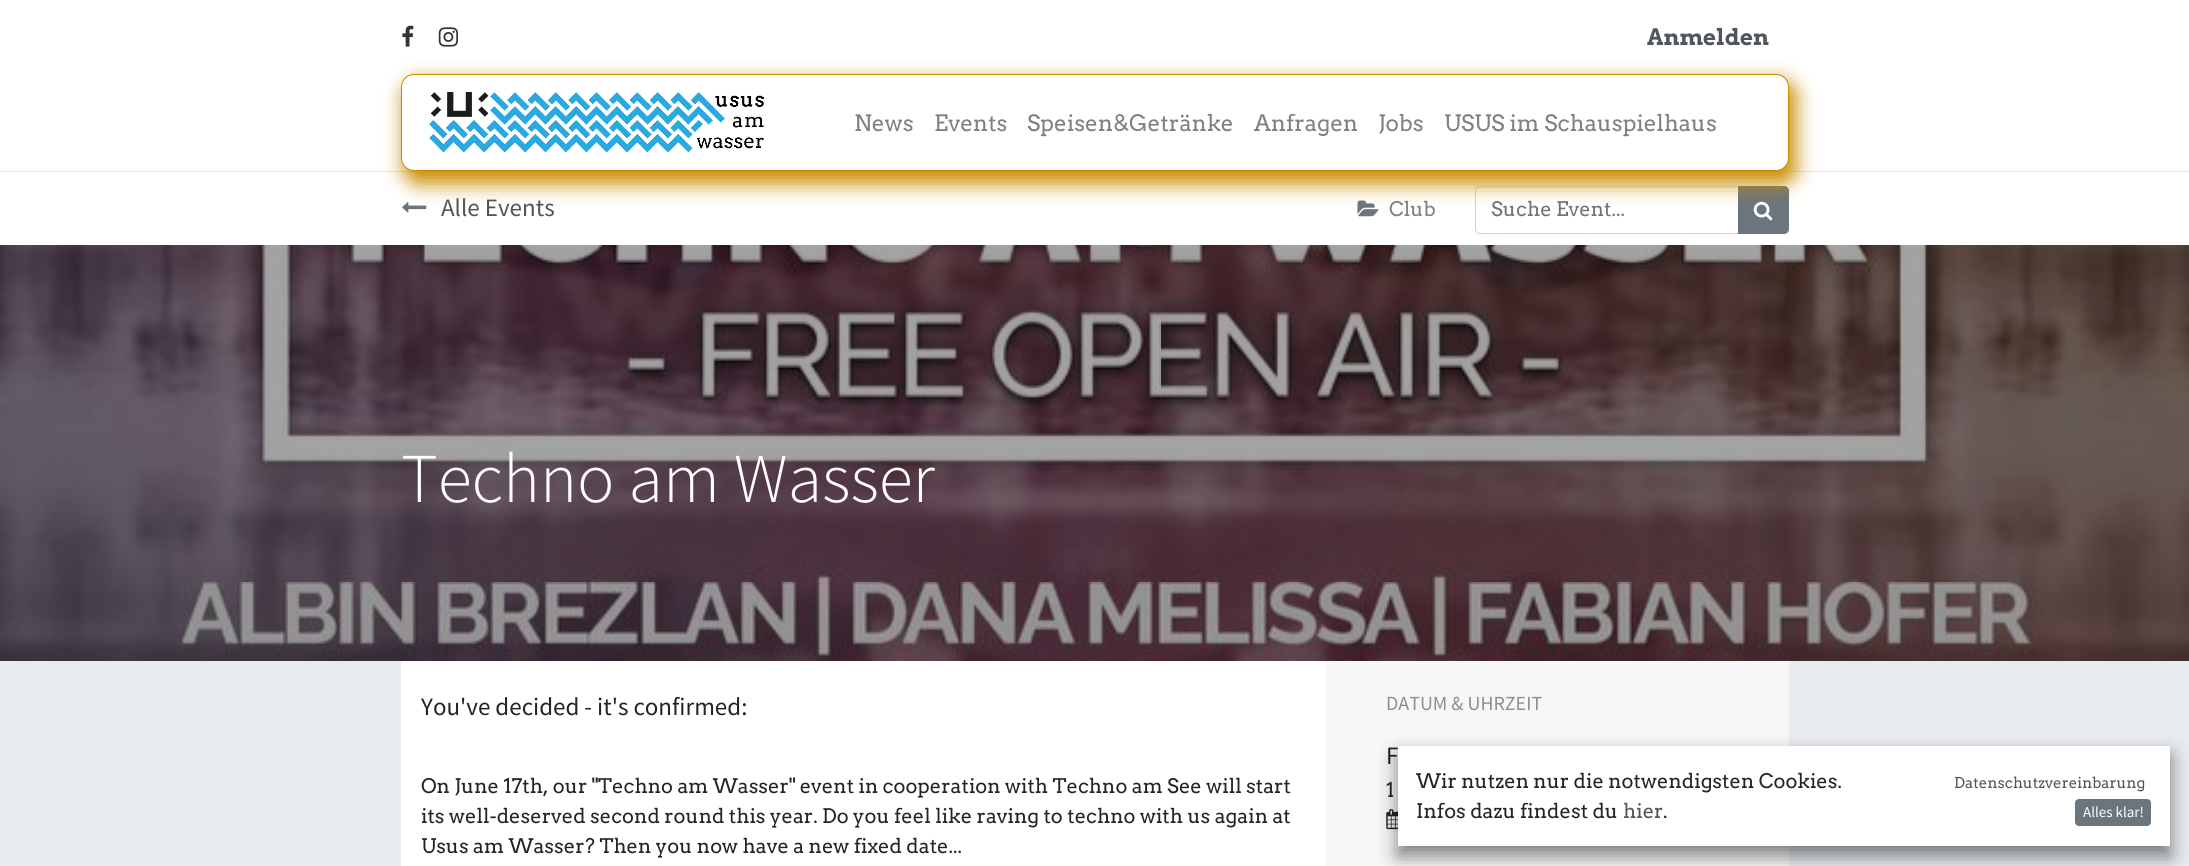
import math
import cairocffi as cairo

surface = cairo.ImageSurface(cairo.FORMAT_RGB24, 2189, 866)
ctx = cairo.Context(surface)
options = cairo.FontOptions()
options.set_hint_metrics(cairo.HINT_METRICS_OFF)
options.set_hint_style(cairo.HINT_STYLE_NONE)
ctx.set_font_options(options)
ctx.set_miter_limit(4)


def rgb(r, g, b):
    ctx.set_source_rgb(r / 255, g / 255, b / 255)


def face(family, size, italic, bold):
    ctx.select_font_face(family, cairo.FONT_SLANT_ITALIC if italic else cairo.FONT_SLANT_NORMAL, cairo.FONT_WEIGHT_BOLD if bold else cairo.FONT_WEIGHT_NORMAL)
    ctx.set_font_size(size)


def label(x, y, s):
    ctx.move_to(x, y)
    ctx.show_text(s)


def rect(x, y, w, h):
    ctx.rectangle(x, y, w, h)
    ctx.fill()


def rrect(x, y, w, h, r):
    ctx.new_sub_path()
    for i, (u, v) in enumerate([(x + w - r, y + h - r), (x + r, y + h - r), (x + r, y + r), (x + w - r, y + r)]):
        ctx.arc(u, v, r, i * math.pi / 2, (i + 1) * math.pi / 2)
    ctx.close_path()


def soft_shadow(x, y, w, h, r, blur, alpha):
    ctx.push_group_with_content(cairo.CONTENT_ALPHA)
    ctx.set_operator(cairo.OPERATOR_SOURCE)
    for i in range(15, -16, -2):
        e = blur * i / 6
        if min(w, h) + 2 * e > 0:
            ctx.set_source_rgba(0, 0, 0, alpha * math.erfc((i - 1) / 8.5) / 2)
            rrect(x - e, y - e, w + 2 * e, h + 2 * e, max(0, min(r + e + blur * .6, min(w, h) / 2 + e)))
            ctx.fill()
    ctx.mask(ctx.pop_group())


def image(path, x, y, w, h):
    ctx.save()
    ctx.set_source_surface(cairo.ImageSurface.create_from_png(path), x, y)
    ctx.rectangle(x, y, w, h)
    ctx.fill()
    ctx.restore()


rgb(255, 255, 255)
ctx.paint()
image('image0.png', 402, 25, 12, 22)
image('image1.png', 438, 27, 21, 20)
face('Arvo', 22.5, 0, 1)
rgb(80, 86, 92)
label(1647, 45, 'Anmelden')
rgb(222, 226, 230)
rect(0, 171, 2189, 1)
image('image3.png', 402, 202, 25, 11)
image('image4.png', 1357, 200, 22, 17)
ctx.new_path()
ctx.move_to(1480, 186.5)
ctx.line_to(1738.5, 186.5)
ctx.line_to(1738.5, 233.5)
ctx.line_to(1480, 233.5)
ctx.curve_to(1477.5, 233.5, 1475.5, 231.5, 1475.5, 229)
ctx.line_to(1475.5, 191)
ctx.curve_to(1475.5, 188.5, 1477.5, 186.5, 1480, 186.5)
ctx.close_path()
rgb(206, 212, 218)
ctx.set_line_width(1)
ctx.stroke()
rgb(108, 117, 125)
ctx.new_path()
ctx.move_to(1738.5, 186.5)
ctx.line_to(1784, 186.5)
ctx.curve_to(1786.5, 186.5, 1788.5, 188.5, 1788.5, 191)
ctx.line_to(1788.5, 229)
ctx.curve_to(1788.5, 231.5, 1786.5, 233.5, 1784, 233.5)
ctx.line_to(1738.5, 233.5)
ctx.close_path()
ctx.fill_preserve()
ctx.stroke()
image('image5.png', 1753, 201, 20, 20)
rgb(201, 140, 1)
soft_shadow(404, 81, 1392, 103, 15, 10, 1)
rgb(255, 255, 255)
rrect(401.5, 74.5, 1387, 96, 12.5)
ctx.fill_preserve()
rgb(201, 140, 1)
ctx.stroke()
image('image2.png', 429, 92, 335, 61)
face('Arvo', 22.5, 0, 0)
rgb(128, 128, 128)
label(854, 131, 'News')
label(934, 131, 'Events')
label(1027, 131, 'Speisen&Getränke')
label(1254, 131, 'Anfragen')
label(1378, 131, 'Jobs')
label(1444, 131, 'USUS im Schauspielhaus')
face('Source Sans Pro', 25, 0, 0)
rgb(80, 86, 92)
label(441, 216, 'Alle Events')
face('Arvo', 20, 0, 0)
rgb(128, 128, 128)
label(1389, 216, 'Club')
rgb(108, 117, 125)
label(1491, 216, 'Suche Event...')
image('image6.png', 0, 245, 2189, 416)
face('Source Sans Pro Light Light', 70, 0, 0)
rgb(255, 255, 255)
label(401, 502, 'Techno am Wasser')
rgb(233, 236, 239)
rect(0, 661, 2189, 205)
rgb(255, 255, 255)
rect(401, 661, 925, 205)
face('Source Sans Pro', 25, 0, 0)
rgb(33, 37, 41)
label(421, 715, 'You\'ve decided - it\'s confirmed:')
face('Arvo', 20, 0, 0)
label(421, 793, 'On June 17th, our "Techno am Wasser" event in cooperation with Techno am See will start')
label(421, 823, 'its well-deserved second round this year. Do you feel like raving to techno with us again at')
label(421, 853, 'Usus am Wasser? Then you now have a new fixed date...')
rgb(247, 247, 247)
rect(1326, 661, 463, 205)
face('Source Sans Pro', 20, 0, 0)
rgb(140, 142, 144)
label(1386, 710, 'DATUM & UHRZEIT')
face('Source Sans Pro', 25, 0, 0)
rgb(33, 37, 41)
label(1386, 764, 'F')
face('Arvo', 20, 0, 0)
label(1386, 797, '1')
image('image7.png', 1386, 809, 12, 21)
rgb(0, 0, 0)
soft_shadow(1398, 756, 772, 100, 0, 10, 0.5)
rgb(255, 255, 255)
rect(1398, 746, 772, 100)
rgb(33, 37, 41)
label(1416, 788, 'Wir nutzen nur die notwendigsten Cookies.')
label(1416, 818, 'Infos dazu findest du')
rgb(80, 86, 92)
label(1623, 818, 'hier')
rgb(33, 37, 41)
label(1663, 818, '.')
face('Arvo', 15, 0, 0)
rgb(80, 86, 92)
label(1954, 788, 'Datenschutzvereinbarung')
rgb(108, 117, 125)
rrect(2075.5, 799.5, 75, 26, 3.5)
ctx.fill_preserve()
ctx.stroke()
face('Source Sans Pro', 15, 0, 0)
rgb(255, 255, 255)
label(2083, 817, 'Alles klar!')
surface.write_to_png('render.png')
